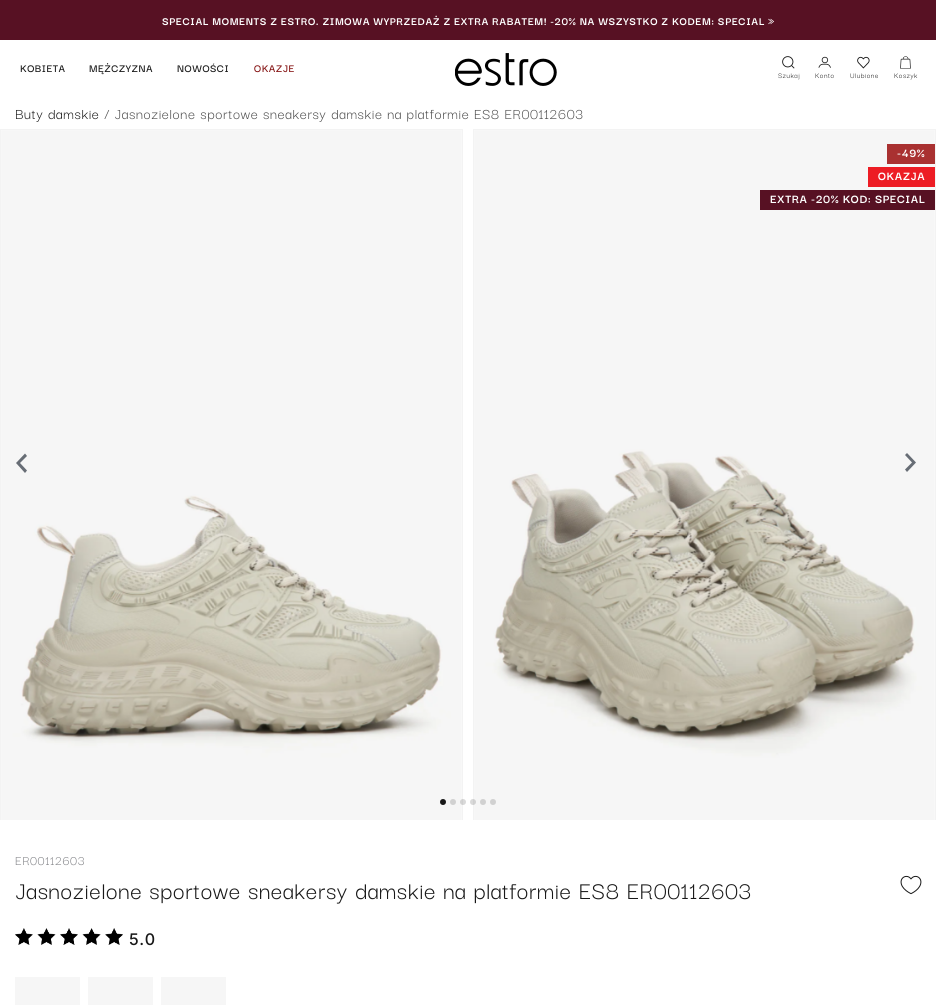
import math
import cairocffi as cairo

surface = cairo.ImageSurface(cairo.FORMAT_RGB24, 936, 1005)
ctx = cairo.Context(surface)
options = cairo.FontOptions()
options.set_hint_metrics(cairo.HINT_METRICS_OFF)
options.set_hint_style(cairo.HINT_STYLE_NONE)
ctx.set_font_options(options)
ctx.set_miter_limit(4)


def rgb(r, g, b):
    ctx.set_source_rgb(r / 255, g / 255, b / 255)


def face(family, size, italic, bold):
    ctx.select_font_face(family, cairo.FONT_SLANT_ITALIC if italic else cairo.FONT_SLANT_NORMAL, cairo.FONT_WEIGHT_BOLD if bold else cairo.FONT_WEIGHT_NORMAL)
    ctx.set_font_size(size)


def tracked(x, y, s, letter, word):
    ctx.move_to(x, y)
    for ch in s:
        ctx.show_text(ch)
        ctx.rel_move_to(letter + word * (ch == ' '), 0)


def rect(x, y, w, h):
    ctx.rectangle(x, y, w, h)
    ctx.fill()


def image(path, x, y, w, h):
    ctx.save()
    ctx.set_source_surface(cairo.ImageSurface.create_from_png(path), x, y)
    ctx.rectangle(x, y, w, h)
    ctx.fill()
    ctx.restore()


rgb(255, 255, 255)
ctx.paint()
rgb(87, 17, 35)
rect(0, 0, 936, 40)
face('Darker Grotesque', 12, 0, 1)
rgb(255, 255, 255)
tracked(162, 25, 'SPECIAL MOMENTS Z ESTRO. ZIMOWA WYPRZEDAŻ Z EXTRA RABATEM! -20% NA WSZYSTKO Z KODEM: SPECIAL »', 0.6, 0)
face('Darker Grotesque SemiBold', 11.75, 0, 0)
rgb(24, 24, 24)
tracked(20, 72, 'KOBIETA', 0.5, 0)
tracked(89, 72, 'MĘŻCZYZNA', 0.5, 0)
tracked(177, 72, 'NOWOŚCI', 0.5, 0)
rgb(134, 21, 21)
tracked(254, 72, 'OKAZJE', 0.5, 0)
image('image0.png', 455, 53, 102, 33)
image('image1.png', 782, 56, 13, 13)
face('Darker Grotesque', 8, 0, 0)
rgb(24, 24, 24)
tracked(778, 78, 'Szukaj', 0.5, 0)
image('image2.png', 818, 56, 13, 12)
tracked(815, 78, 'Konto', 0.5, 0)
image('image3.png', 857, 56, 13, 13)
tracked(850, 78, 'Ulubione', 0.5, 0)
image('image4.png', 900, 56, 11, 13)
tracked(894, 78, 'Koszyk', 0.5, 0)
face('Darker Grotesque', 16, 0, 0)
tracked(15, 119, 'Buty damskie', 0.6, 0)
rgb(77, 77, 77)
tracked(104, 119, '/ Jasnozielone sportowe sneakersy damskie na platformie ES8 ER00112603', 0.6, 0)
ctx.save()
ctx.rectangle(0, 129, 463, 691)
ctx.clip()
ctx.rectangle(0.5, 129.5, 462, 692)
rgb(243, 243, 243)
ctx.set_line_width(1)
ctx.stroke()
ctx.restore()
image('image5.png', 1, 130, 461, 690)
ctx.save()
ctx.rectangle(473, 129, 463, 691)
ctx.clip()
ctx.rectangle(473.5, 129.5, 462, 692)
rgb(243, 243, 243)
ctx.set_line_width(1)
ctx.stroke()
ctx.restore()
image('image6.png', 474, 130, 461, 690)
rgb(169, 49, 49)
rect(887, 144, 48, 20)
face('Darker Grotesque', 13, 0, 1)
rgb(255, 255, 255)
tracked(897, 157, '-49%', 0.6, 0)
rgb(237, 28, 36)
rect(868, 167, 67, 20)
rgb(255, 255, 255)
tracked(878, 180, 'OKAZJA', 0.6, 0)
rgb(87, 17, 35)
rect(760, 190, 175, 20)
rgb(255, 255, 255)
tracked(770, 203, 'EXTRA -20% KOD: SPECIAL', 0.6, 0)
rgb(103, 109, 117)
ctx.new_path()
ctx.move_to(27, 470.5)
ctx.line_to(20, 463)
ctx.line_to(27, 456)
ctx.line_to(25, 453.5)
ctx.line_to(16, 463)
ctx.line_to(25, 473)
ctx.close_path()
ctx.fill()
ctx.new_path()
ctx.move_to(905, 455)
ctx.line_to(912, 462.5)
ctx.line_to(905, 469.5)
ctx.line_to(907, 472)
ctx.line_to(916, 462.5)
ctx.line_to(907, 453)
ctx.close_path()
ctx.fill()
rgb(24, 24, 24)
ctx.arc(443, 802, 3, 0, 2 * math.pi)
ctx.fill()
rgb(209, 209, 209)
ctx.arc(453, 802, 3, 0, 2 * math.pi)
ctx.fill()
ctx.set_source_rgba(0, 0, 0, 0.15)
ctx.arc(463, 802, 3, 0, 2 * math.pi)
ctx.fill()
ctx.arc(473, 802, 3, 0, 2 * math.pi)
ctx.fill()
rgb(209, 209, 209)
ctx.arc(483, 802, 3, 0, 2 * math.pi)
ctx.fill()
ctx.arc(493, 802, 3, 0, 2 * math.pi)
ctx.fill()
face('Darker Grotesque', 14, 0, 0)
rgb(129, 130, 134)
tracked(15, 865, 'ER00112603', 0.6, 0)
face('Darker Grotesque', 26, 0, 0)
rgb(24, 24, 24)
tracked(15, 899, 'Jasnozielone sportowe sneakersy damskie na platformie ES8 ER00112603', 0.6, 0)
image('image7.png', 900, 875, 22, 20)
image('image8.png', 15, 928, 108, 17)
face('Inter Medium', 16, 0, 0)
tracked(129, 945, '5.0', 0.6, 0)
rgb(246, 246, 246)
rect(15, 977, 65, 28)
rect(88, 977, 65, 28)
rect(161, 977, 65, 28)
surface.write_to_png('render.png')
